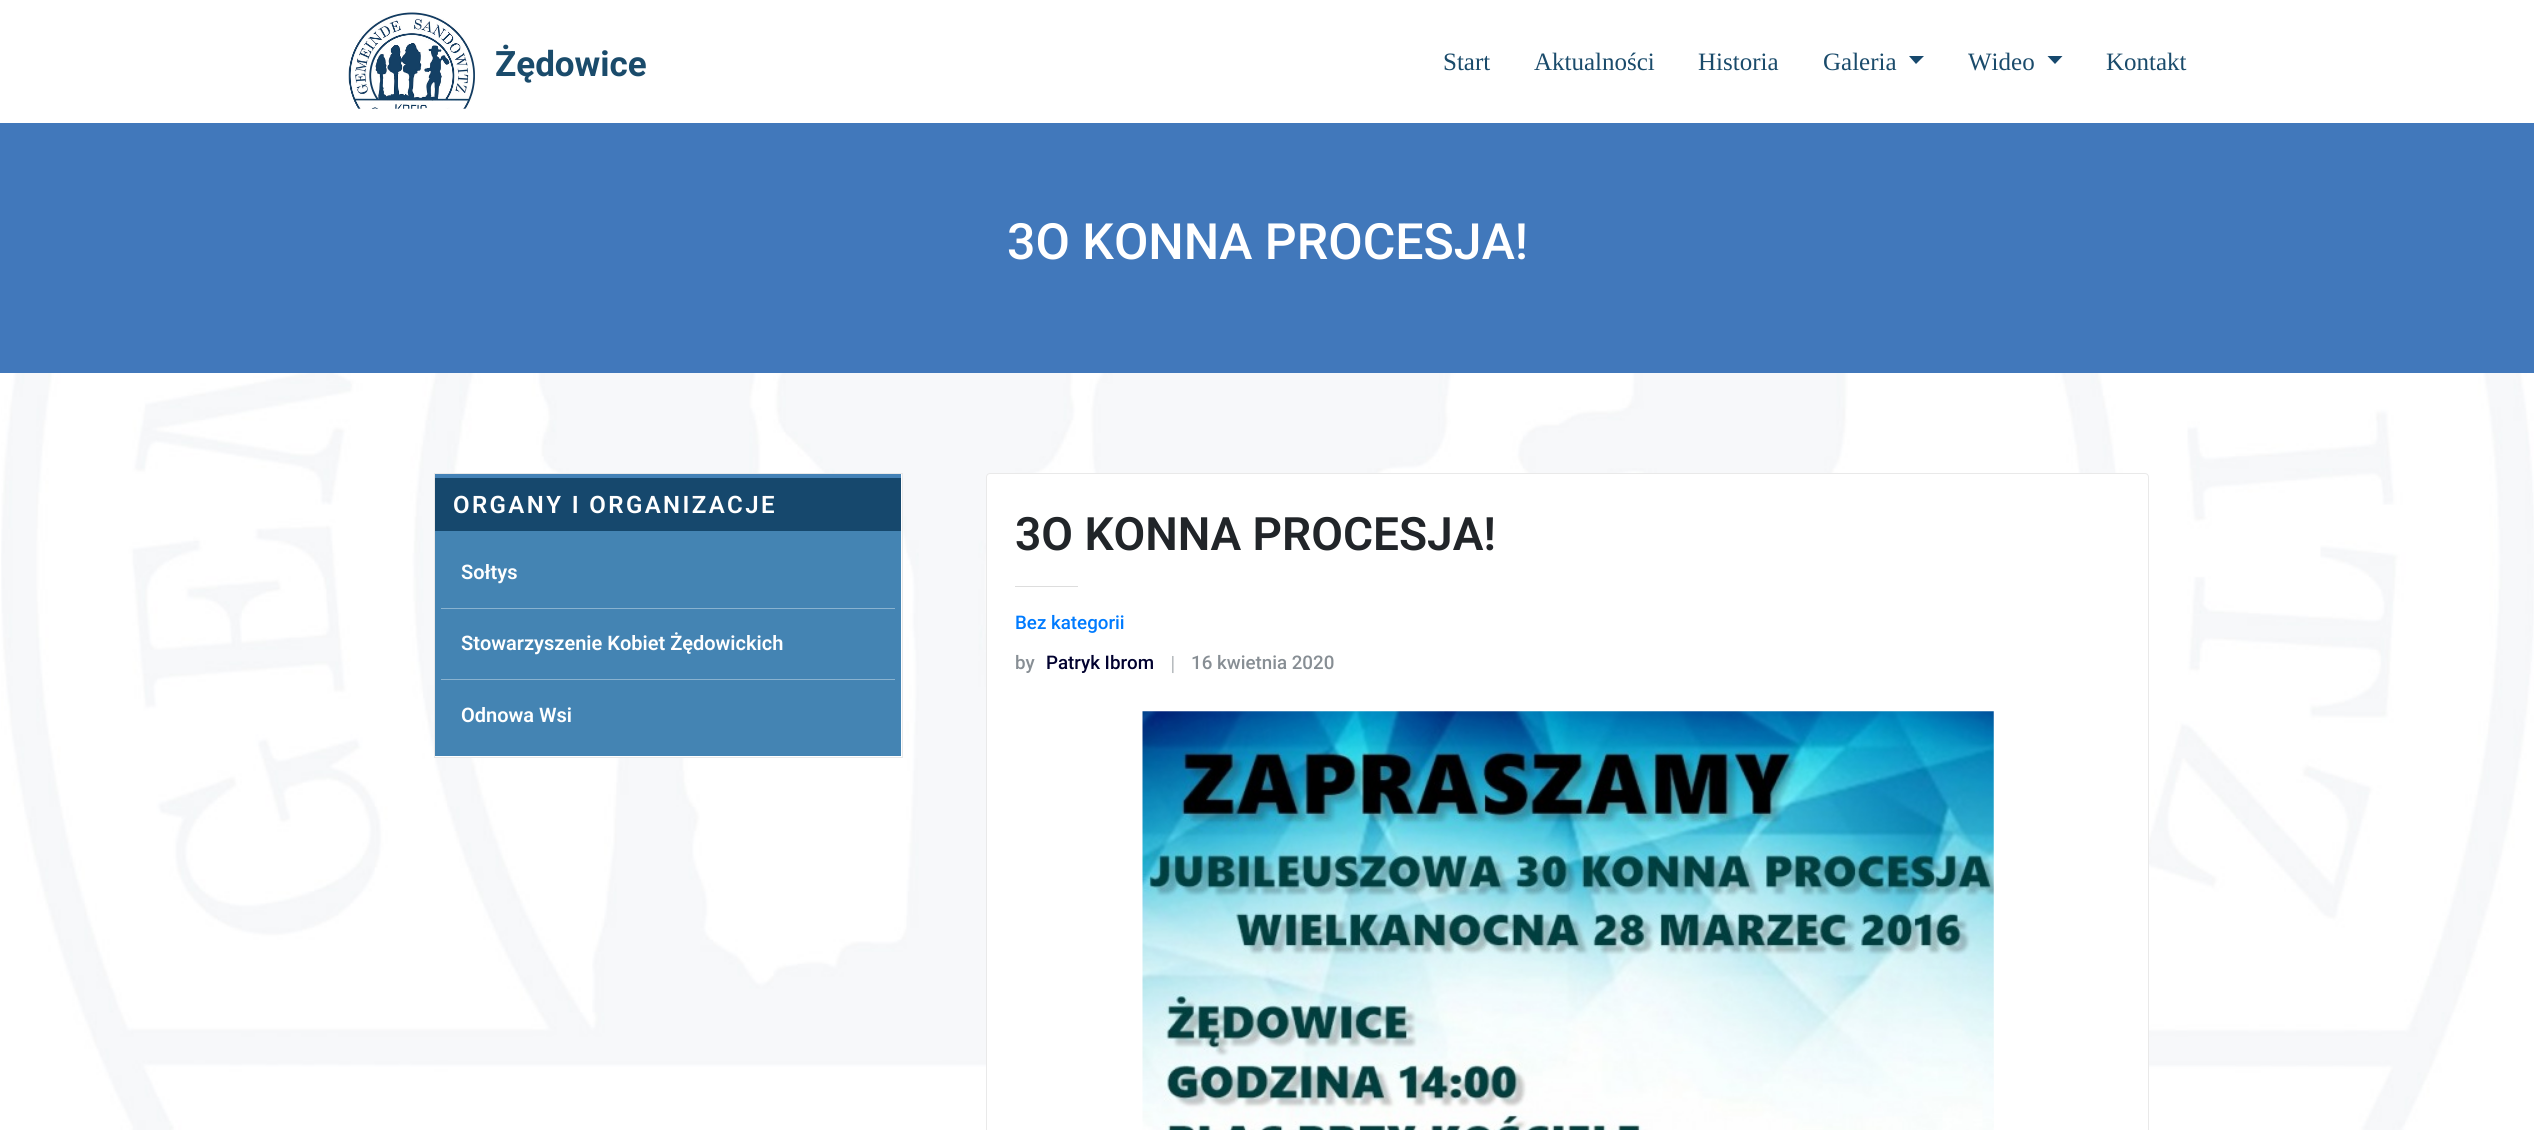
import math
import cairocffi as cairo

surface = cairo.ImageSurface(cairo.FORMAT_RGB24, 2534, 1130)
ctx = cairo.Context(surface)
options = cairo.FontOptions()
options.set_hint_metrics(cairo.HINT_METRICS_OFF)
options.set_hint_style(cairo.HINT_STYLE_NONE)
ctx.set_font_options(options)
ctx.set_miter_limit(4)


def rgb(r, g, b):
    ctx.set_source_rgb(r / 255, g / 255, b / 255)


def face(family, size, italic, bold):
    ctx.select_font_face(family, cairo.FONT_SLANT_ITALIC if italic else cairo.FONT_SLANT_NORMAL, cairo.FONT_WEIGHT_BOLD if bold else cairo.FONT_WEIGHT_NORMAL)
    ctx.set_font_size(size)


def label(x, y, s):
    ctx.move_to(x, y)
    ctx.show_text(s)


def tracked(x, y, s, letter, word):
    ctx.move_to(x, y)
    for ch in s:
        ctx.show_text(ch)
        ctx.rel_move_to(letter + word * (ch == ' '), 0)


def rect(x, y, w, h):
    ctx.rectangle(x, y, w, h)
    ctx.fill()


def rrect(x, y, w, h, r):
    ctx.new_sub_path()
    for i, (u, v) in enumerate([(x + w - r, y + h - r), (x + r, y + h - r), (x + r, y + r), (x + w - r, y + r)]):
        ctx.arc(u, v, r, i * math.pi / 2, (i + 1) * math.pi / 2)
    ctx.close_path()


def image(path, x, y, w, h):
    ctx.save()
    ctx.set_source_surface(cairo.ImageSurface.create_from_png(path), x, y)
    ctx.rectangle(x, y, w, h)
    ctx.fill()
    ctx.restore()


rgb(255, 255, 255)
ctx.paint()
image('image0.png', 1, 373, 2533, 757)
image('image1.png', 348, 12, 127, 97)
face('Roboto', 35, 0, 1)
rgb(26, 75, 107)
label(495, 76, 'Żędowice')
face('Liberation Serif', 25, 0, 0)
label(1443, 70, 'Start')
label(1534, 70, 'Aktualności')
label(1698, 70, 'Historia')
label(1823, 70, 'Galeria')
rgb(22, 72, 109)
ctx.new_path()
ctx.move_to(1909, 56)
ctx.line_to(1924, 56)
ctx.line_to(1916, 64)
ctx.close_path()
ctx.fill()
rgb(26, 75, 107)
label(1968, 70, 'Wideo')
rgb(22, 72, 109)
ctx.new_path()
ctx.move_to(2047.5, 56)
ctx.line_to(2062.5, 56)
ctx.line_to(2055, 64)
ctx.close_path()
ctx.fill()
rgb(26, 75, 107)
label(2106, 70, 'Kontakt')
rgb(65, 120, 187)
rect(0, 123, 2534, 250)
face('Roboto Medium', 50, 0, 0)
rgb(255, 255, 255)
label(1007, 259, '3O KONNA PROCESJA!')
ctx.rectangle(434.5, 473.5, 468, 284)
ctx.fill_preserve()
rgb(233, 233, 233)
ctx.set_line_width(1)
ctx.stroke()
rgb(22, 72, 109)
rect(435, 478, 466, 53)
rgb(68, 130, 183)
rect(435, 474, 466, 4)
face('Roboto SemiBold', 24, 0, 0)
rgb(255, 255, 255)
tracked(453, 513, 'ORGANY I ORGANIZACJE', 2.4, 0)
rgb(68, 132, 179)
rect(435, 531, 466, 225)
rgb(137, 178, 207)
rect(441, 608, 454, 1)
face('Roboto SemiBold', 20, 0, 0)
rgb(255, 255, 255)
label(461, 579, 'Sołtys')
rgb(137, 178, 207)
rect(441, 679, 454, 1)
rgb(255, 255, 255)
label(461, 650, 'Stowarzyszenie Kobiet Żędowickich')
label(461, 722, 'Odnowa Wsi')
rrect(986.5, 473.5, 1162, 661, 3.5)
ctx.fill_preserve()
rgb(233, 233, 233)
ctx.stroke()
face('Roboto SemiBold', 46, 0, 0)
rgb(33, 37, 41)
label(1015, 550, '3O KONNA PROCESJA!')
rgb(221, 221, 221)
rect(1015, 586, 63, 1)
face('Roboto Medium', 18.75, 0, 0)
rgb(0, 123, 255)
label(1015, 629, 'Bez kategorii')
rgb(135, 142, 148)
label(1015, 669, 'by')
rgb(1, 1, 47)
label(1046, 669, 'Patryk Ibrom')
face('Liberation Serif', 18.75, 0, 0)
rgb(135, 142, 148)
label(1171, 669, '|')
face('Roboto Medium', 18.75, 0, 0)
label(1191, 669, '16 kwietnia 2020')
image('image2.png', 1142, 711, 852, 419)
surface.write_to_png('render.png')
